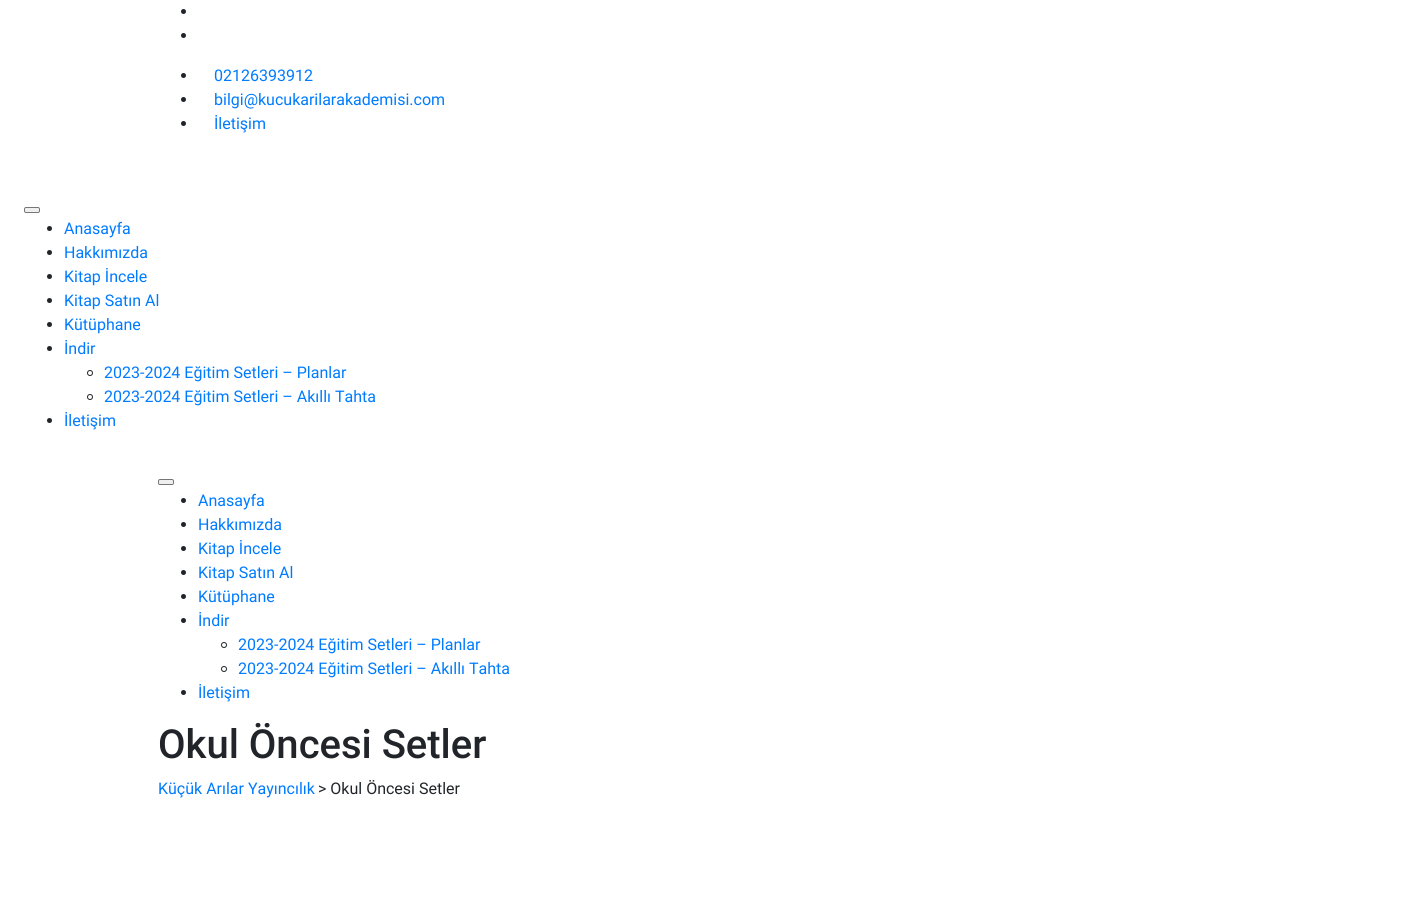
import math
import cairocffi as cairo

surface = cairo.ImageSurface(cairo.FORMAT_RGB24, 1425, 906)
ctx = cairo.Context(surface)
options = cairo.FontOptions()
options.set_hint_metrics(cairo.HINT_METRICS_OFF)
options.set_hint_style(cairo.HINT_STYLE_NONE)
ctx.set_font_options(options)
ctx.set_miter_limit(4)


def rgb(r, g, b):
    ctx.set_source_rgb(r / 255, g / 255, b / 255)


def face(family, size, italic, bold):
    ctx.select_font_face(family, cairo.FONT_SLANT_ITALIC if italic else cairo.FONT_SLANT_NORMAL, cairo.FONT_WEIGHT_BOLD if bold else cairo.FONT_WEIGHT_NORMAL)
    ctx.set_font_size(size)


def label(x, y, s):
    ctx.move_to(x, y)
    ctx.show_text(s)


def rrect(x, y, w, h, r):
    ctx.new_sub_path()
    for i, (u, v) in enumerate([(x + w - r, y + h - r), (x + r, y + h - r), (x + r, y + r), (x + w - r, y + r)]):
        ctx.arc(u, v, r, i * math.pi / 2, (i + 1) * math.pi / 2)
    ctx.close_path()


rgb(255, 255, 255)
ctx.paint()
rgb(33, 37, 41)
ctx.arc(183.5, 11.5, 2.5, 0, 2 * math.pi)
ctx.fill()
ctx.arc(183.5, 35.5, 2.5, 0, 2 * math.pi)
ctx.fill()
ctx.arc(183.5, 75.5, 2.5, 0, 2 * math.pi)
ctx.fill()
face('Roboto', 16, 0, 0)
rgb(0, 123, 255)
label(214, 81, '02126393912')
rgb(33, 37, 41)
ctx.new_path()
ctx.arc(183.5, 99.5, 2.5, 0, 2 * math.pi)
ctx.fill()
rgb(0, 123, 255)
label(214, 105, 'bilgi@kucukarilarakademisi.com')
rgb(33, 37, 41)
ctx.new_path()
ctx.arc(183.5, 123.5, 2.5, 0, 2 * math.pi)
ctx.fill()
rgb(0, 123, 255)
label(214, 129, 'İletişim')
rgb(239, 239, 239)
rrect(24.5, 207.5, 15, 5, 1.5)
ctx.fill_preserve()
rgb(118, 118, 118)
ctx.set_line_width(1)
ctx.stroke()
rgb(33, 37, 41)
ctx.arc(49.5, 228.5, 2.5, 0, 2 * math.pi)
ctx.fill()
rgb(0, 123, 255)
label(64, 234, 'Anasayfa')
rgb(33, 37, 41)
ctx.new_path()
ctx.arc(49.5, 252.5, 2.5, 0, 2 * math.pi)
ctx.fill()
rgb(0, 123, 255)
label(64, 258, 'Hakkımızda')
rgb(33, 37, 41)
ctx.new_path()
ctx.arc(49.5, 276.5, 2.5, 0, 2 * math.pi)
ctx.fill()
rgb(0, 123, 255)
label(64, 282, 'Kitap İncele')
rgb(33, 37, 41)
ctx.new_path()
ctx.arc(49.5, 300.5, 2.5, 0, 2 * math.pi)
ctx.fill()
rgb(0, 123, 255)
label(64, 306, 'Kitap Satın Al')
rgb(33, 37, 41)
ctx.new_path()
ctx.arc(49.5, 324.5, 2.5, 0, 2 * math.pi)
ctx.fill()
rgb(0, 123, 255)
label(64, 330, 'Kütüphane')
rgb(33, 37, 41)
ctx.new_path()
ctx.arc(49.5, 348.5, 2.5, 0, 2 * math.pi)
ctx.fill()
rgb(0, 123, 255)
label(64, 354, 'İndir')
ctx.new_path()
ctx.arc(90, 373, 2.5, 0, 2 * math.pi)
rgb(33, 37, 41)
ctx.stroke()
rgb(0, 123, 255)
label(104, 378, '2023-2024 Eğitim Setleri – Planlar')
ctx.new_path()
ctx.arc(90, 397, 2.5, 0, 2 * math.pi)
rgb(33, 37, 41)
ctx.stroke()
rgb(0, 123, 255)
label(104, 402, '2023-2024 Eğitim Setleri – Akıllı Tahta')
rgb(33, 37, 41)
ctx.new_path()
ctx.arc(49.5, 420.5, 2.5, 0, 2 * math.pi)
ctx.fill()
rgb(0, 123, 255)
label(64, 426, 'İletişim')
rgb(239, 239, 239)
rrect(158.5, 479.5, 15, 5, 1.5)
ctx.fill_preserve()
rgb(118, 118, 118)
ctx.stroke()
rgb(33, 37, 41)
ctx.arc(183.5, 500.5, 2.5, 0, 2 * math.pi)
ctx.fill()
rgb(0, 123, 255)
label(198, 506, 'Anasayfa')
rgb(33, 37, 41)
ctx.new_path()
ctx.arc(183.5, 524.5, 2.5, 0, 2 * math.pi)
ctx.fill()
rgb(0, 123, 255)
label(198, 530, 'Hakkımızda')
rgb(33, 37, 41)
ctx.new_path()
ctx.arc(183.5, 548.5, 2.5, 0, 2 * math.pi)
ctx.fill()
rgb(0, 123, 255)
label(198, 554, 'Kitap İncele')
rgb(33, 37, 41)
ctx.new_path()
ctx.arc(183.5, 572.5, 2.5, 0, 2 * math.pi)
ctx.fill()
rgb(0, 123, 255)
label(198, 578, 'Kitap Satın Al')
rgb(33, 37, 41)
ctx.new_path()
ctx.arc(183.5, 596.5, 2.5, 0, 2 * math.pi)
ctx.fill()
rgb(0, 123, 255)
label(198, 602, 'Kütüphane')
rgb(33, 37, 41)
ctx.new_path()
ctx.arc(183.5, 620.5, 2.5, 0, 2 * math.pi)
ctx.fill()
rgb(0, 123, 255)
label(198, 626, 'İndir')
ctx.new_path()
ctx.arc(224, 645, 2.5, 0, 2 * math.pi)
rgb(33, 37, 41)
ctx.stroke()
rgb(0, 123, 255)
label(238, 650, '2023-2024 Eğitim Setleri – Planlar')
ctx.new_path()
ctx.arc(224, 669, 2.5, 0, 2 * math.pi)
rgb(33, 37, 41)
ctx.stroke()
rgb(0, 123, 255)
label(238, 674, '2023-2024 Eğitim Setleri – Akıllı Tahta')
rgb(33, 37, 41)
ctx.new_path()
ctx.arc(183.5, 692.5, 2.5, 0, 2 * math.pi)
ctx.fill()
rgb(0, 123, 255)
label(198, 698, 'İletişim')
face('Roboto Medium', 40, 0, 0)
rgb(33, 37, 41)
label(158, 758, 'Okul Öncesi Setler')
face('Roboto', 16, 0, 0)
rgb(0, 123, 255)
label(158, 794, 'Küçük Arılar Yayıncılık')
rgb(33, 37, 41)
label(318, 794, '> Okul Öncesi Setler')
surface.write_to_png('render.png')
